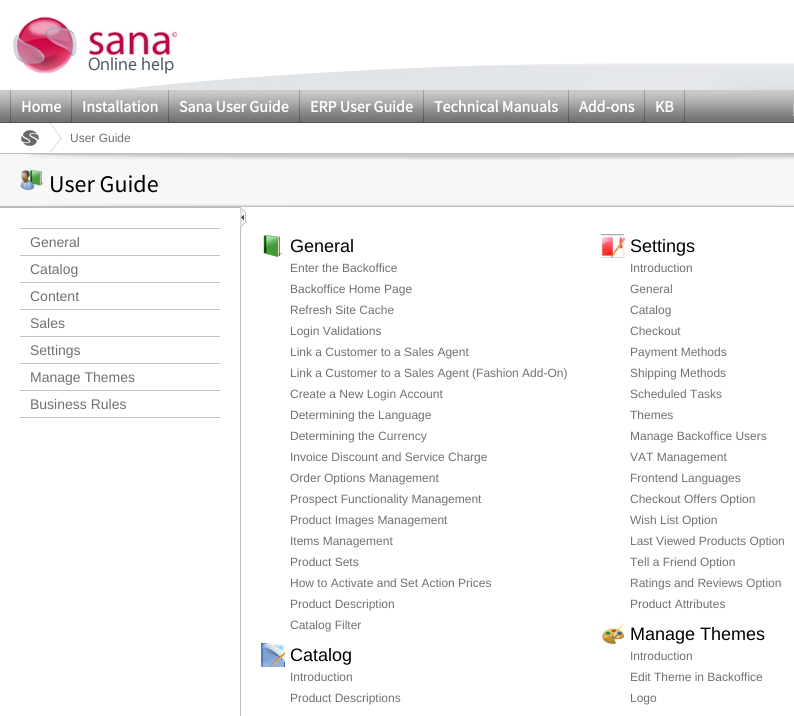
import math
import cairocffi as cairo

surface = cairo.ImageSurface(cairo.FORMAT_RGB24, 794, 716)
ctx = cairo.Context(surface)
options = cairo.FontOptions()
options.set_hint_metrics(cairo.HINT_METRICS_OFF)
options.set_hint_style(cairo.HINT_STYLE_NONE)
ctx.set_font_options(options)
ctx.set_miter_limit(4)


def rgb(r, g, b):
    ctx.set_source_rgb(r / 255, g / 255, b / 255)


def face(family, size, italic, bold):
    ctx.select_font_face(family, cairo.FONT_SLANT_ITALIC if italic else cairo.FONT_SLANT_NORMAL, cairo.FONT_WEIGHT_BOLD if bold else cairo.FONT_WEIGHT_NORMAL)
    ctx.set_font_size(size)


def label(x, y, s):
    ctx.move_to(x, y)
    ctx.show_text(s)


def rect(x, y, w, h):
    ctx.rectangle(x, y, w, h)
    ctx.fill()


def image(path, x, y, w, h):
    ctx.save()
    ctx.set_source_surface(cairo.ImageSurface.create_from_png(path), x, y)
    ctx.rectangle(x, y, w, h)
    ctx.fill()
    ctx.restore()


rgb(255, 255, 255)
ctx.paint()
image('image0.png', 0, 63, 794, 27)
image('image1.png', 13, 17, 164, 57)
image('image2.png', 0, 90, 794, 32)
rgb(86, 86, 86)
rect(0, 122, 794, 1)
image('image3.png', 10, 90, 675, 32)
image('image4.png', 11, 90, 60, 32)
face('Source Sans Pro', 16, 0, 1)
rgb(255, 255, 255)
label(21, 112, 'Home')
image('image5.png', 72, 90, 96, 32)
label(82, 112, 'Installation')
image('image6.png', 169, 90, 130, 32)
label(179, 112, 'Sana User Guide')
image('image7.png', 300, 90, 123, 32)
label(310, 112, 'ERP User Guide')
image('image8.png', 424, 90, 144, 32)
label(434, 112, 'Technical Manuals')
image('image9.png', 569, 90, 75, 32)
label(579, 112, 'Add-ons')
image('image10.png', 645, 90, 39, 32)
label(655, 112, 'KB')
rgb(188, 188, 188)
rect(793, 95, 1, 21)
rect(0, 153, 794, 1)
image('image11.png', 21, 130, 18, 16)
image('image12.png', 50, 123, 11, 30)
face('Liberation Sans', 12, 0, 0)
rgb(112, 112, 112)
label(70, 142, 'User Guide')
rgb(247, 247, 247)
rect(0, 154, 794, 52)
rgb(188, 188, 188)
rect(0, 206, 794, 1)
image('image13.png', 27, 154, 767, 6)
image('image14.png', 20, 170, 24, 21)
face('Source Sans Pro', 24, 0, 0)
rgb(0, 0, 0)
label(49, 192, 'User Guide')
image('image15.png', 32, 204, 762, 2)
rgb(188, 188, 188)
rect(0, 207, 241, 1)
rect(240, 207, 1, 509)
image('image16.png', 240, 208, 6, 19)
rgb(195, 195, 195)
rect(20, 417, 200, 1)
rect(20, 228, 200, 1)
face('Liberation Sans', 14, 0, 0)
rgb(112, 112, 112)
label(30, 247, 'General')
rgb(195, 195, 195)
rect(20, 255, 200, 1)
rgb(112, 112, 112)
label(30, 274, 'Catalog')
rgb(195, 195, 195)
rect(20, 282, 200, 1)
rgb(112, 112, 112)
label(30, 301, 'Content')
rgb(195, 195, 195)
rect(20, 309, 200, 1)
rgb(112, 112, 112)
label(30, 328, 'Sales')
rgb(195, 195, 195)
rect(20, 336, 200, 1)
rgb(112, 112, 112)
label(30, 355, 'Settings')
rgb(195, 195, 195)
rect(20, 363, 200, 1)
rgb(112, 112, 112)
label(30, 382, 'Manage Themes')
rgb(195, 195, 195)
rect(20, 390, 200, 1)
rgb(112, 112, 112)
label(30, 409, 'Business Rules')
image('image17.png', 263, 235, 20, 22)
face('Liberation Sans', 18, 0, 0)
rgb(0, 0, 0)
label(290, 252, 'General')
face('Liberation Sans', 12, 0, 0)
rgb(112, 112, 112)
label(290, 272, 'Enter the Backoffice')
label(290, 293, 'Backoffice Home Page')
label(290, 314, 'Refresh Site Cache')
label(290, 335, 'Login Validations')
label(290, 356, 'Link a Customer to a Sales Agent')
label(290, 377, 'Link a Customer to a Sales Agent (Fashion Add-On)')
label(290, 398, 'Create a New Login Account')
label(290, 419, 'Determining the Language')
label(290, 440, 'Determining the Currency')
label(290, 461, 'Invoice Discount and Service Charge')
label(290, 482, 'Order Options Management')
label(290, 503, 'Prospect Functionality Management')
label(290, 524, 'Product Images Management')
label(290, 545, 'Items Management')
label(290, 566, 'Product Sets')
label(290, 587, 'How to Activate and Set Action Prices')
label(290, 608, 'Product Description')
label(290, 629, 'Catalog Filter')
image('image18.png', 601, 234, 24, 24)
face('Liberation Sans', 18, 0, 0)
rgb(0, 0, 0)
label(630, 252, 'Settings')
face('Liberation Sans', 12, 0, 0)
rgb(112, 112, 112)
label(630, 272, 'Introduction')
label(630, 293, 'General')
label(630, 314, 'Catalog')
label(630, 335, 'Checkout')
label(630, 356, 'Payment Methods')
label(630, 377, 'Shipping Methods')
label(630, 398, 'Scheduled Tasks')
label(630, 419, 'Themes')
label(630, 440, 'Manage Backoffice Users')
label(630, 461, 'VAT Management')
label(630, 482, 'Frontend Languages')
label(630, 503, 'Checkout Offers Option')
label(630, 524, 'Wish List Option')
label(630, 545, 'Last Viewed Products Option')
label(630, 566, 'Tell a Friend Option')
label(630, 587, 'Ratings and Reviews Option')
label(630, 608, 'Product Attributes')
image('image19.png', 261, 643, 24, 24)
face('Liberation Sans', 18, 0, 0)
rgb(0, 0, 0)
label(290, 661, 'Catalog')
face('Liberation Sans', 12, 0, 0)
rgb(112, 112, 112)
label(290, 681, 'Introduction')
label(290, 702, 'Product Descriptions')
image('image20.png', 602, 623, 22, 21)
face('Liberation Sans', 18, 0, 0)
rgb(0, 0, 0)
label(630, 640, 'Manage Themes')
face('Liberation Sans', 12, 0, 0)
rgb(112, 112, 112)
label(630, 660, 'Introduction')
label(630, 681, 'Edit Theme in Backoffice')
label(630, 702, 'Logo')
surface.write_to_png('render.png')
